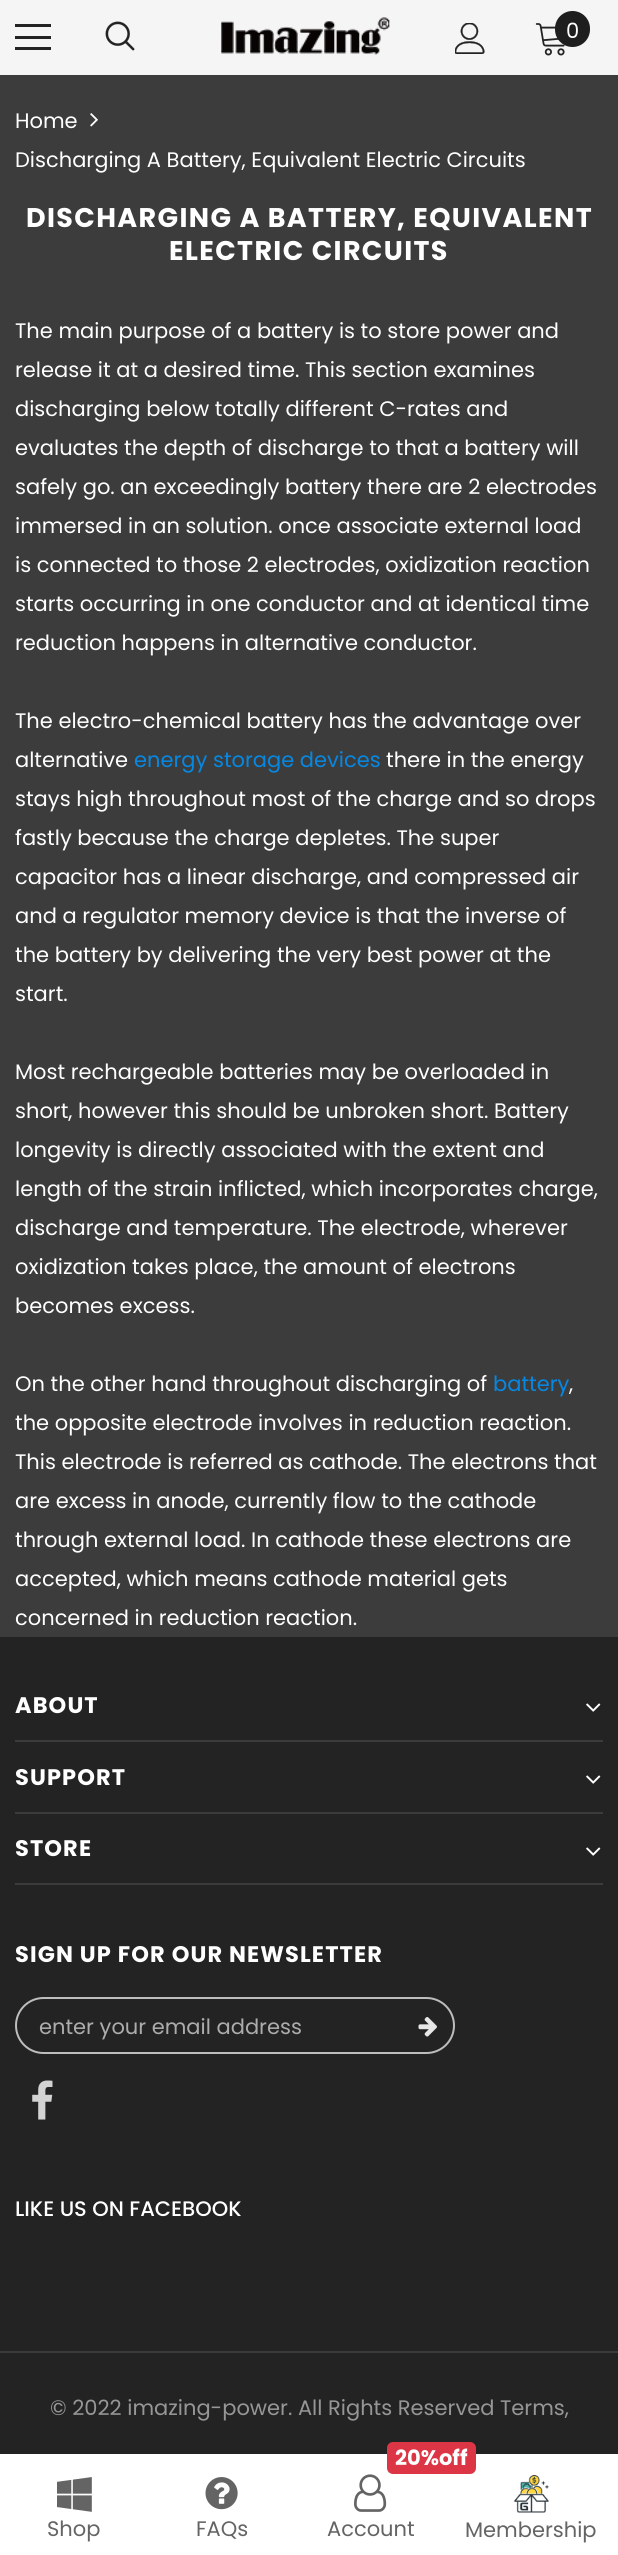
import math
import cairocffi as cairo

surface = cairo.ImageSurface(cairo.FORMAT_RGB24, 618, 2555)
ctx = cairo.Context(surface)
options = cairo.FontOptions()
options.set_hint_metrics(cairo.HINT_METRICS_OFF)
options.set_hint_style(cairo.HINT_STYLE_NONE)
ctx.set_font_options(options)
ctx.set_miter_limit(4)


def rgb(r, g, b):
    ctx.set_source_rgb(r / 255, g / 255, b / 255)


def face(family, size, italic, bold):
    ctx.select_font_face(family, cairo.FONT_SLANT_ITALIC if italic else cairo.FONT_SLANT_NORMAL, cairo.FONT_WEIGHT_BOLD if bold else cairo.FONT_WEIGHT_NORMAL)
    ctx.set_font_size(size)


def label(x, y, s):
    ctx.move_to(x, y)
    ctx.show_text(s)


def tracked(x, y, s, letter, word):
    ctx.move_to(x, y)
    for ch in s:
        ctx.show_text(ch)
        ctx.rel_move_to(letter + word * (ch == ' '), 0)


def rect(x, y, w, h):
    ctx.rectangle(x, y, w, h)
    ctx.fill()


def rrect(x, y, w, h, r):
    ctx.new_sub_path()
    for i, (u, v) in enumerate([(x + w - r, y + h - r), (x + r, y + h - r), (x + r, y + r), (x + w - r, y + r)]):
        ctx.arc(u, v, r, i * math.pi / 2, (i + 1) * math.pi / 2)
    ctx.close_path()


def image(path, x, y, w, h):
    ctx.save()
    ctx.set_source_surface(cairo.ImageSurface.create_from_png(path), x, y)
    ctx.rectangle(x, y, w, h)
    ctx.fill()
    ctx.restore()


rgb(60, 60, 60)
ctx.paint()
rgb(245, 245, 245)
rect(0, 0, 618, 75)
rgb(35, 35, 35)
rect(15, 24, 36, 3)
rect(15, 36, 36, 3)
rect(15, 47, 36, 3)
image('image0.png', 105, 21, 30, 30)
image('image1.png', 221, 17, 169, 38)
image('image2.png', 455, 23, 30, 31)
image('image3.png', 535, 23, 30, 33)
rgb(30, 30, 30)
rrect(555, 11, 35, 36, 17.5)
ctx.fill()
face('Poppins', 21, 0, 0)
rgb(255, 255, 255)
label(566, 38, '0')
label(15, 128, 'Home')
image('image4.png', 90, 113, 8, 14)
label(15, 167, 'Discharging A Battery, Equivalent Electric Circuits')
face('Poppins', 27, 0, 1)
tracked(26, 227, 'DISCHARGING A BATTERY, EQUIVALENT', 1.35, 0)
tracked(169, 260, 'ELECTRIC CIRCUITS', 1.35, 0)
face('Poppins', 21, 0, 0)
label(15, 338, 'The main purpose of a battery is to store power and')
label(15, 377, 'release it at a desired time. This section examines')
label(15, 416, 'discharging below totally different C-rates and')
label(15, 455, 'evaluates the depth of discharge to that a battery will')
label(15, 494, 'safely go. an exceedingly battery there are 2 electrodes')
label(15, 533, 'immersed in an solution. once associate external load')
label(15, 572, 'is connected to those 2 electrodes, oxidization reaction')
label(15, 611, 'starts occurring in one conductor and at identical time')
label(15, 650, 'reduction happens in alternative conductor.')
label(15, 728, 'The electro-chemical battery has the advantage over')
label(15, 767, 'alternative')
rgb(6, 136, 226)
label(134, 767, 'energy storage devices')
rgb(255, 255, 255)
label(386, 767, 'there in the energy')
label(15, 806, 'stays high throughout most of the charge and so drops')
label(15, 845, 'fastly because the charge depletes. The super')
label(15, 884, 'capacitor has a linear discharge, and compressed air')
label(15, 923, 'and a regulator memory device is that the inverse of')
label(15, 962, 'the battery by delivering the very best power at the')
label(15, 1001, 'start.')
label(15, 1079, 'Most rechargeable batteries may be overloaded in')
label(15, 1118, 'short, however this should be unbroken short. Battery')
label(15, 1157, 'longevity is directly associated with the extent and')
label(15, 1196, 'length of the strain inflicted, which incorporates charge,')
label(15, 1235, 'discharge and temperature. The electrode, wherever')
label(15, 1274, 'oxidization takes place, the amount of electrons')
label(15, 1313, 'becomes excess.')
label(15, 1391, 'On the other hand throughout discharging of')
rgb(6, 136, 226)
label(493, 1391, 'battery')
rgb(255, 255, 255)
label(569, 1391, ',')
label(15, 1430, 'the opposite electrode involves in reduction reaction.')
label(15, 1469, 'This electrode is referred as cathode. The electrons that')
label(15, 1508, 'are excess in anode, currently flow to the cathode')
label(15, 1547, 'through external load. In cathode these electrons are')
label(15, 1586, 'accepted, which means cathode material gets')
label(15, 1625, 'concerned in reduction reaction.')
rgb(35, 35, 35)
rect(0, 1637, 618, 817)
rgb(59, 59, 59)
rect(15, 1740, 588, 2)
face('Poppins', 22.5, 0, 1)
rgb(255, 255, 255)
tracked(15, 1713, 'ABOUT', 1.1, 0)
image('image5.png', 586, 1703, 15, 9)
rgb(59, 59, 59)
rect(15, 1812, 588, 2)
rgb(255, 255, 255)
tracked(15, 1785, 'SUPPORT', 1.1, 0)
image('image5.png', 586, 1775, 15, 9)
rgb(59, 59, 59)
rect(15, 1883, 588, 2)
rgb(255, 255, 255)
tracked(15, 1856, 'STORE', 1.1, 0)
image('image5.png', 586, 1847, 15, 9)
tracked(15, 1962, 'SIGN UP FOR OUR NEWSLETTER', 1.1, 0)
rrect(16, 1998, 438, 55, 27.5)
rgb(189, 189, 189)
ctx.stroke()
face('Poppins', 21, 0, 0)
rgb(172, 172, 172)
label(39, 2034, 'enter your email address')
image('image6.png', 418, 2017, 19, 20)
image('image7.png', 32, 2080, 21, 40)
face('Poppins Medium', 21, 0, 0)
rgb(255, 255, 255)
label(15, 2216, 'LIKE US ON FACEBOOK')
rgb(59, 59, 59)
rect(0, 2351, 618, 2)
face('Poppins', 21, 0, 0)
rgb(150, 150, 150)
label(50, 2415, '© 2022 imazing-power. All Rights Reserved Terms,')
rgb(255, 255, 255)
rect(0, 2454, 618, 101)
image('image8.png', 57, 2477, 35, 35)
rgb(100, 100, 100)
label(47, 2536, 'Shop')
image('image9.png', 205, 2477, 33, 33)
label(196, 2536, 'FAQs')
rgb(220, 53, 69)
rrect(387, 2442, 89, 32, 6)
ctx.fill()
face('Poppins', 21, 0, 1)
rgb(255, 255, 255)
label(395, 2465, '20%off')
image('image10.png', 354, 2474, 33, 38)
face('Poppins', 21, 0, 0)
rgb(100, 100, 100)
label(327, 2536, 'Account')
image('image11.png', 513, 2475, 36, 38)
label(465, 2537, 'Membership')
surface.write_to_png('render.png')
